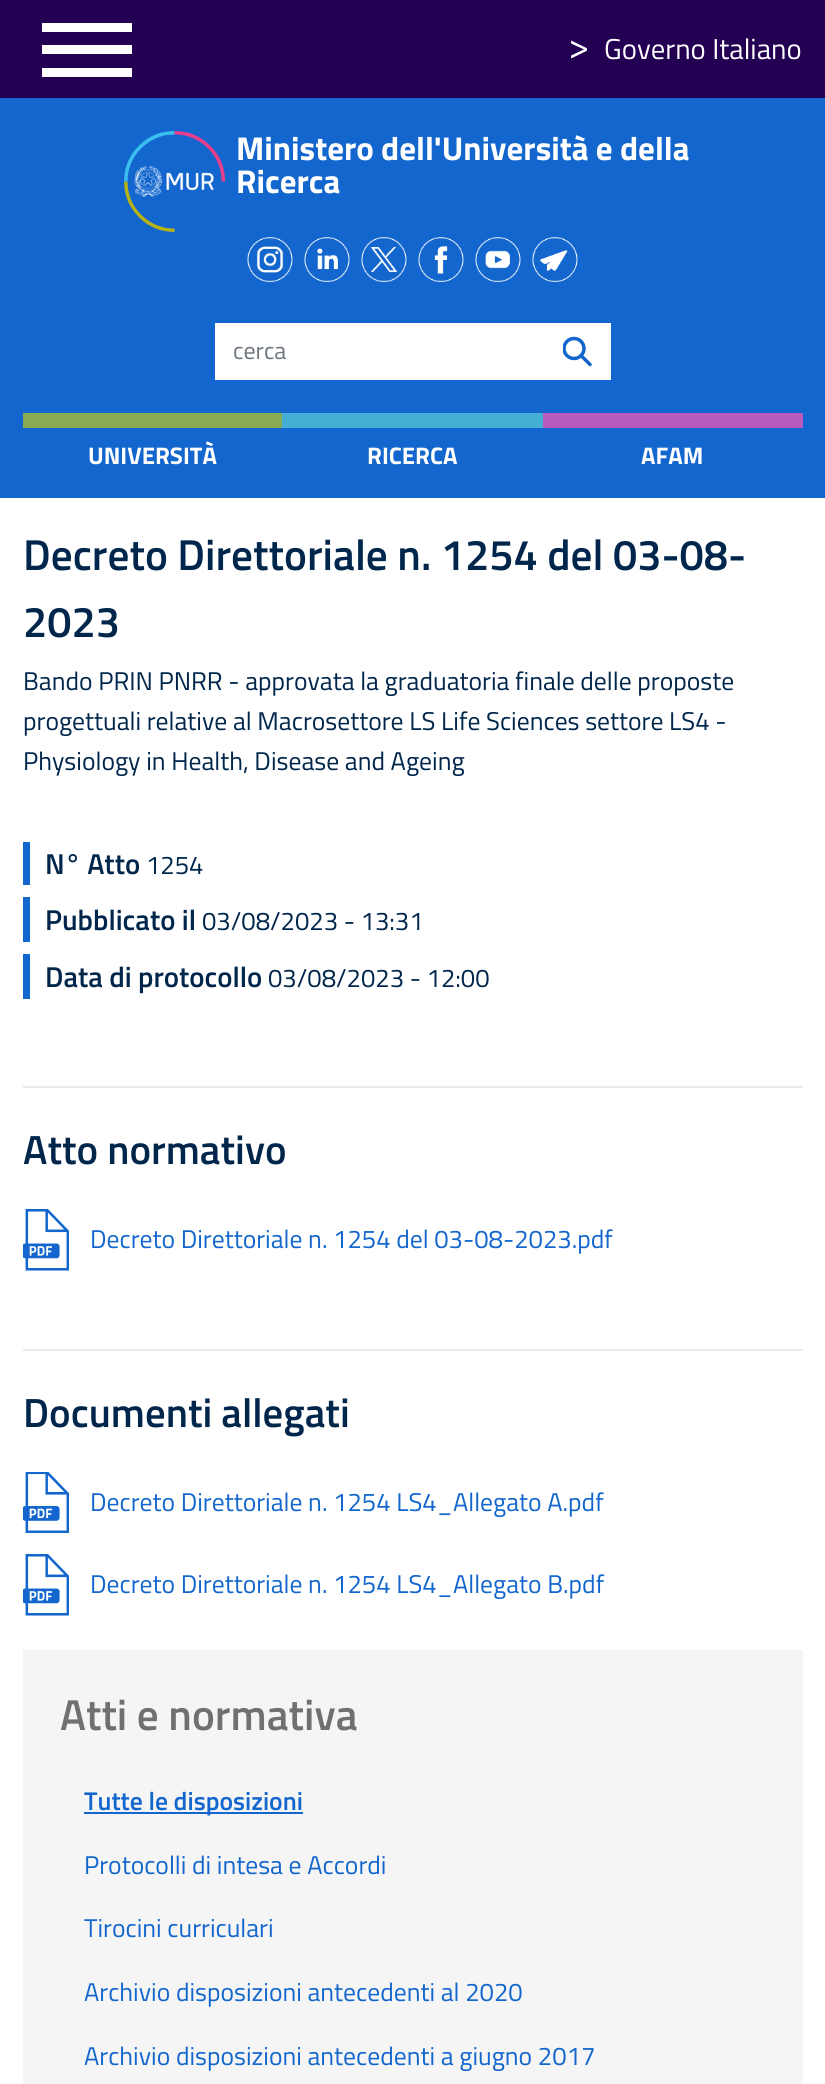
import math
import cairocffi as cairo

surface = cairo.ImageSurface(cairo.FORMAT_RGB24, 825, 2084)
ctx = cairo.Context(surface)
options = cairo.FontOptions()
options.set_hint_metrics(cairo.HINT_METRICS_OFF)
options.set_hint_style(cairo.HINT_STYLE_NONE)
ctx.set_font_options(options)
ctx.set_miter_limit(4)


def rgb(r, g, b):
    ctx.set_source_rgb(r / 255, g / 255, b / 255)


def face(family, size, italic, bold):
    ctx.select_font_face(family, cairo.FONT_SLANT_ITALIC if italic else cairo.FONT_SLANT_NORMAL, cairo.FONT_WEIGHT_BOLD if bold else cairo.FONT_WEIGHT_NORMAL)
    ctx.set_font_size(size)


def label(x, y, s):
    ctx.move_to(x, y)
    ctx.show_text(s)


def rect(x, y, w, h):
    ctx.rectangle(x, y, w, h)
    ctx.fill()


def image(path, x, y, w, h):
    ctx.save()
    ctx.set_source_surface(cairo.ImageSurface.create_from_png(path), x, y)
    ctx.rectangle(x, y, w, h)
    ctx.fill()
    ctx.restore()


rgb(255, 255, 255)
ctx.paint()
rgb(36, 0, 83)
rect(0, 0, 825, 98)
rgb(255, 255, 255)
rect(42, 23, 90, 9)
rect(42, 45, 90, 9)
rect(42, 68, 90, 9)
face('Titillium Web', 38, 0, 0)
label(568, 59, '>')
face('Titillium Web', 28.75, 0, 0)
label(604, 59, 'Governo Italiano')
rgb(18, 102, 205)
rect(0, 98, 825, 400)
image('image0.png', 124, 131, 102, 101)
face('Titillium Web', 33, 0, 1)
rgb(255, 255, 255)
label(236, 160, 'Ministero dell\'Università e della')
label(236, 193, 'Ricerca')
image('image1.png', 247, 237, 46, 45)
image('image2.png', 304, 237, 46, 45)
image('image3.png', 361, 237, 46, 45)
image('image4.png', 418, 237, 46, 45)
image('image5.png', 475, 237, 46, 45)
image('image6.png', 532, 237, 46, 45)
rect(215, 323, 396, 57)
face('Titillium Web', 24, 0, 0)
rgb(108, 117, 125)
label(233, 359, 'cerca')
ctx.new_path()
ctx.move_to(581, 355.5)
ctx.line_to(590, 364.5)
rgb(18, 102, 205)
ctx.set_line_width(3.5)
ctx.set_line_cap(cairo.LINE_CAP_ROUND)
ctx.set_line_join(cairo.LINE_JOIN_ROUND)
ctx.stroke()
ctx.save()
ctx.rectangle(563, 333, 30, 38)
ctx.clip()
ctx.arc(574, 348.5, 10, 0, 2 * math.pi)
ctx.set_line_cap(cairo.LINE_CAP_BUTT)
ctx.set_line_join(cairo.LINE_JOIN_MITER)
ctx.stroke()
ctx.restore()
rgb(137, 171, 81)
rect(23, 413, 259, 15)
face('Titillium Web', 24, 0, 1)
rgb(255, 255, 255)
label(88, 464, 'UNIVERSITÀ')
rgb(68, 174, 213)
rect(282, 413, 261, 15)
rgb(255, 255, 255)
label(367, 464, 'RICERCA')
rgb(185, 91, 188)
rect(543, 413, 260, 15)
rgb(255, 255, 255)
label(641, 464, 'AFAM')
face('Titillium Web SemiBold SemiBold', 43.25, 0, 0)
rgb(0, 38, 76)
label(23, 570, 'Decreto Direttoriale n. 1254 del 03-08-')
label(23, 637, '2023')
face('Titillium Web', 25.65, 0, 0)
label(23, 690, 'Bando PRIN PNRR - approvata la graduatoria finale delle proposte')
label(23, 730, 'progettuali relative al Macrosettore LS Life Sciences settore LS4 -')
label(23, 770, 'Physiology in Health, Disease and Ageing')
rgb(18, 102, 205)
rect(23, 842, 7, 43)
face('Titillium Web SemiBold SemiBold', 28.75, 0, 0)
rgb(0, 38, 76)
label(45, 874, 'N° Atto')
face('Titillium Web', 25.65, 0, 0)
label(146, 874, '1254')
rgb(18, 102, 205)
rect(23, 897, 7, 45)
face('Titillium Web SemiBold SemiBold', 28.75, 0, 0)
rgb(0, 38, 76)
label(45, 930, 'Pubblicato il')
face('Titillium Web', 25.65, 0, 0)
label(202, 930, '03/08/2023 - 13:31')
rgb(18, 102, 205)
rect(23, 954, 7, 45)
face('Titillium Web SemiBold SemiBold', 28.75, 0, 0)
rgb(0, 38, 76)
label(45, 987, 'Data di protocollo')
face('Titillium Web', 25.65, 0, 0)
label(268, 987, '03/08/2023 - 12:00')
rgb(234, 234, 234)
rect(23, 1086, 780, 2)
face('Titillium Web SemiBold SemiBold', 40.75, 0, 0)
rgb(0, 38, 76)
label(23, 1164, 'Atto normativo')
image('image7.png', 23, 1209, 46, 62)
face('Titillium Web', 25.65, 0, 0)
rgb(18, 102, 205)
label(90, 1248, 'Decreto Direttoriale n. 1254 del 03-08-2023.pdf')
rgb(234, 234, 234)
rect(23, 1349, 780, 2)
face('Titillium Web SemiBold SemiBold', 40.75, 0, 0)
rgb(0, 38, 76)
label(23, 1427, 'Documenti allegati')
image('image8.png', 23, 1472, 46, 61)
face('Titillium Web', 25.65, 0, 0)
rgb(18, 102, 205)
label(90, 1511, 'Decreto Direttoriale n. 1254 LS4_Allegato A.pdf')
image('image7.png', 23, 1554, 46, 62)
label(90, 1593, 'Decreto Direttoriale n. 1254 LS4_Allegato B.pdf')
rgb(245, 245, 245)
rect(23, 1650, 780, 434)
face('Titillium Web SemiBold SemiBold', 43.25, 0, 0)
rgb(112, 112, 112)
label(60, 1730, 'Atti e normativa')
rgb(18, 102, 205)
rect(84, 1812, 219, 2)
face('Titillium Web SemiBold SemiBold', 25.65, 0, 0)
label(84, 1810, 'Tutte le disposizioni')
face('Titillium Web', 25.65, 0, 0)
label(84, 1874, 'Protocolli di intesa e Accordi')
label(84, 1937, 'Tirocini curriculari')
label(84, 2001, 'Archivio disposizioni antecedenti al 2020')
label(84, 2065, 'Archivio disposizioni antecedenti a giugno 2017')
surface.write_to_png('render.png')
